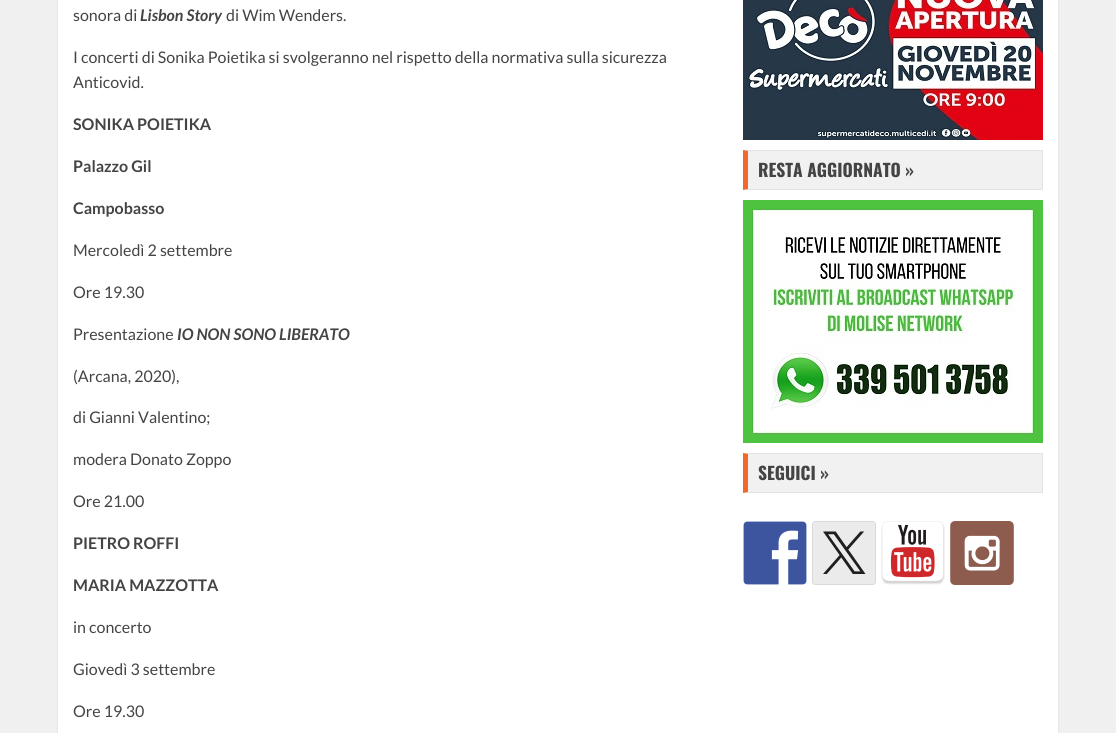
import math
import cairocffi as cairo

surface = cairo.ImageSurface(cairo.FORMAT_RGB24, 1116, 733)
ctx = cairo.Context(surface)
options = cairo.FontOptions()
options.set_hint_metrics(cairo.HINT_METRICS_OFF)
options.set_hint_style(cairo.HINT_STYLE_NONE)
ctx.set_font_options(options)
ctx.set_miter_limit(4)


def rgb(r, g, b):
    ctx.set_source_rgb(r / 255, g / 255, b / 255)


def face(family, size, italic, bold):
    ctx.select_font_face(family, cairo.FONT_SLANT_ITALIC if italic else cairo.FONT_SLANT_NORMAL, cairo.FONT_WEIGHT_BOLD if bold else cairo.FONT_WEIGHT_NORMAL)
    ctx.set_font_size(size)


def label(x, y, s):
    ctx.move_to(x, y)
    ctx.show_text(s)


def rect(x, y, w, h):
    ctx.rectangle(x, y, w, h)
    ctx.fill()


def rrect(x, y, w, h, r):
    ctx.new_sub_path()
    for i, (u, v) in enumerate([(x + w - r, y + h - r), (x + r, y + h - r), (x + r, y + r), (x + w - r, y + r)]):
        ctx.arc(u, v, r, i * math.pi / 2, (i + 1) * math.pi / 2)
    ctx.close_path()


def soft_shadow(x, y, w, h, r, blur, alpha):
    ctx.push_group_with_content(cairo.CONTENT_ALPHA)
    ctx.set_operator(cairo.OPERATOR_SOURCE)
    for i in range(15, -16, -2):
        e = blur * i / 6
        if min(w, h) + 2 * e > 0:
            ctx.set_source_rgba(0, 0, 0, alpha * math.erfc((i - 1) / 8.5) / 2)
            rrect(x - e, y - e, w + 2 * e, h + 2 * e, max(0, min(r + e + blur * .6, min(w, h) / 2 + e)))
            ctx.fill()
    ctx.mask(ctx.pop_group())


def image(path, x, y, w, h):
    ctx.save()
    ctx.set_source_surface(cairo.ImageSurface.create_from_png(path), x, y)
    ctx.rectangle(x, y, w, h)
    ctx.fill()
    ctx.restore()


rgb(240, 240, 240)
ctx.paint()
rgb(0, 0, 0)
soft_shadow(58, -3, 1000, 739, 0, 1, 0.1)
rgb(255, 255, 255)
rect(58, 0, 1000, 733)
face('Lato', 16, 0, 0)
rgb(68, 68, 68)
label(73, 21, 'sonora di')
face('Lato', 16, 1, 1)
label(140, 21, 'Lisbon Story')
face('Lato', 16, 0, 0)
label(226, 21, 'di Wim Wenders.')
label(73, 63, 'I concerti di Sonika Poietika si svolgeranno nel rispetto della normativa sulla sicurezza')
label(73, 88, 'Anticovid.')
face('Lato', 16, 0, 1)
label(73, 130, 'SONIKA POIETIKA')
label(73, 172, 'Palazzo Gil')
label(73, 214, 'Campobasso')
face('Lato', 16, 0, 0)
label(73, 256, 'Mercoledì 2 settembre')
label(73, 298, 'Ore 19.30')
label(73, 340, 'Presentazione')
face('Lato', 16, 1, 1)
label(177, 340, 'IO NON SONO LIBERATO')
face('Lato', 16, 0, 0)
label(73, 382, '(Arcana, 2020),')
label(73, 423, 'di Gianni Valentino;')
label(73, 465, 'modera Donato Zoppo')
label(73, 507, 'Ore 21.00')
face('Lato', 16, 0, 1)
label(73, 549, 'PIETRO ROFFI')
label(73, 591, 'MARIA MAZZOTTA')
face('Lato', 16, 0, 0)
label(73, 633, 'in concerto')
label(73, 675, 'Giovedì 3 settembre')
label(73, 717, 'Ore 19.30')
image('image0.png', 743, 0, 300, 140)
rgb(241, 241, 241)
rect(748, 151, 294, 38)
rgb(226, 226, 226)
ctx.new_path()
ctx.move_to(743, 150)
ctx.line_to(1043, 150)
ctx.line_to(1042, 151)
ctx.line_to(748, 151)
ctx.close_path()
ctx.fill()
rect(1042, 150, 1, 40)
ctx.new_path()
ctx.move_to(1043, 190)
ctx.line_to(743, 190)
ctx.line_to(748, 189)
ctx.line_to(1042, 189)
ctx.close_path()
ctx.fill()
rgb(242, 103, 42)
ctx.new_path()
ctx.move_to(743, 190)
ctx.line_to(743, 150)
ctx.line_to(748, 151)
ctx.line_to(748, 189)
ctx.close_path()
ctx.fill()
face('Oswald', 17.5, 0, 1)
rgb(68, 68, 68)
label(758, 177, 'RESTA AGGIORNATO »')
image('image1.png', 743, 200, 300, 243)
rgb(241, 241, 241)
rect(748, 454, 294, 38)
rgb(226, 226, 226)
ctx.new_path()
ctx.move_to(743, 453)
ctx.line_to(1043, 453)
ctx.line_to(1042, 454)
ctx.line_to(748, 454)
ctx.close_path()
ctx.fill()
rect(1042, 453, 1, 40)
ctx.new_path()
ctx.move_to(1043, 493)
ctx.line_to(743, 493)
ctx.line_to(748, 492)
ctx.line_to(1042, 492)
ctx.close_path()
ctx.fill()
rgb(242, 103, 42)
ctx.new_path()
ctx.move_to(743, 493)
ctx.line_to(743, 453)
ctx.line_to(748, 454)
ctx.line_to(748, 492)
ctx.close_path()
ctx.fill()
rgb(68, 68, 68)
label(758, 480, 'SEGUICI »')
image('image2.png', 743, 521, 64, 64)
image('image3.png', 812, 521, 64, 64)
image('image4.png', 881, 521, 64, 64)
image('image5.png', 950, 521, 64, 64)
surface.write_to_png('render.png')
